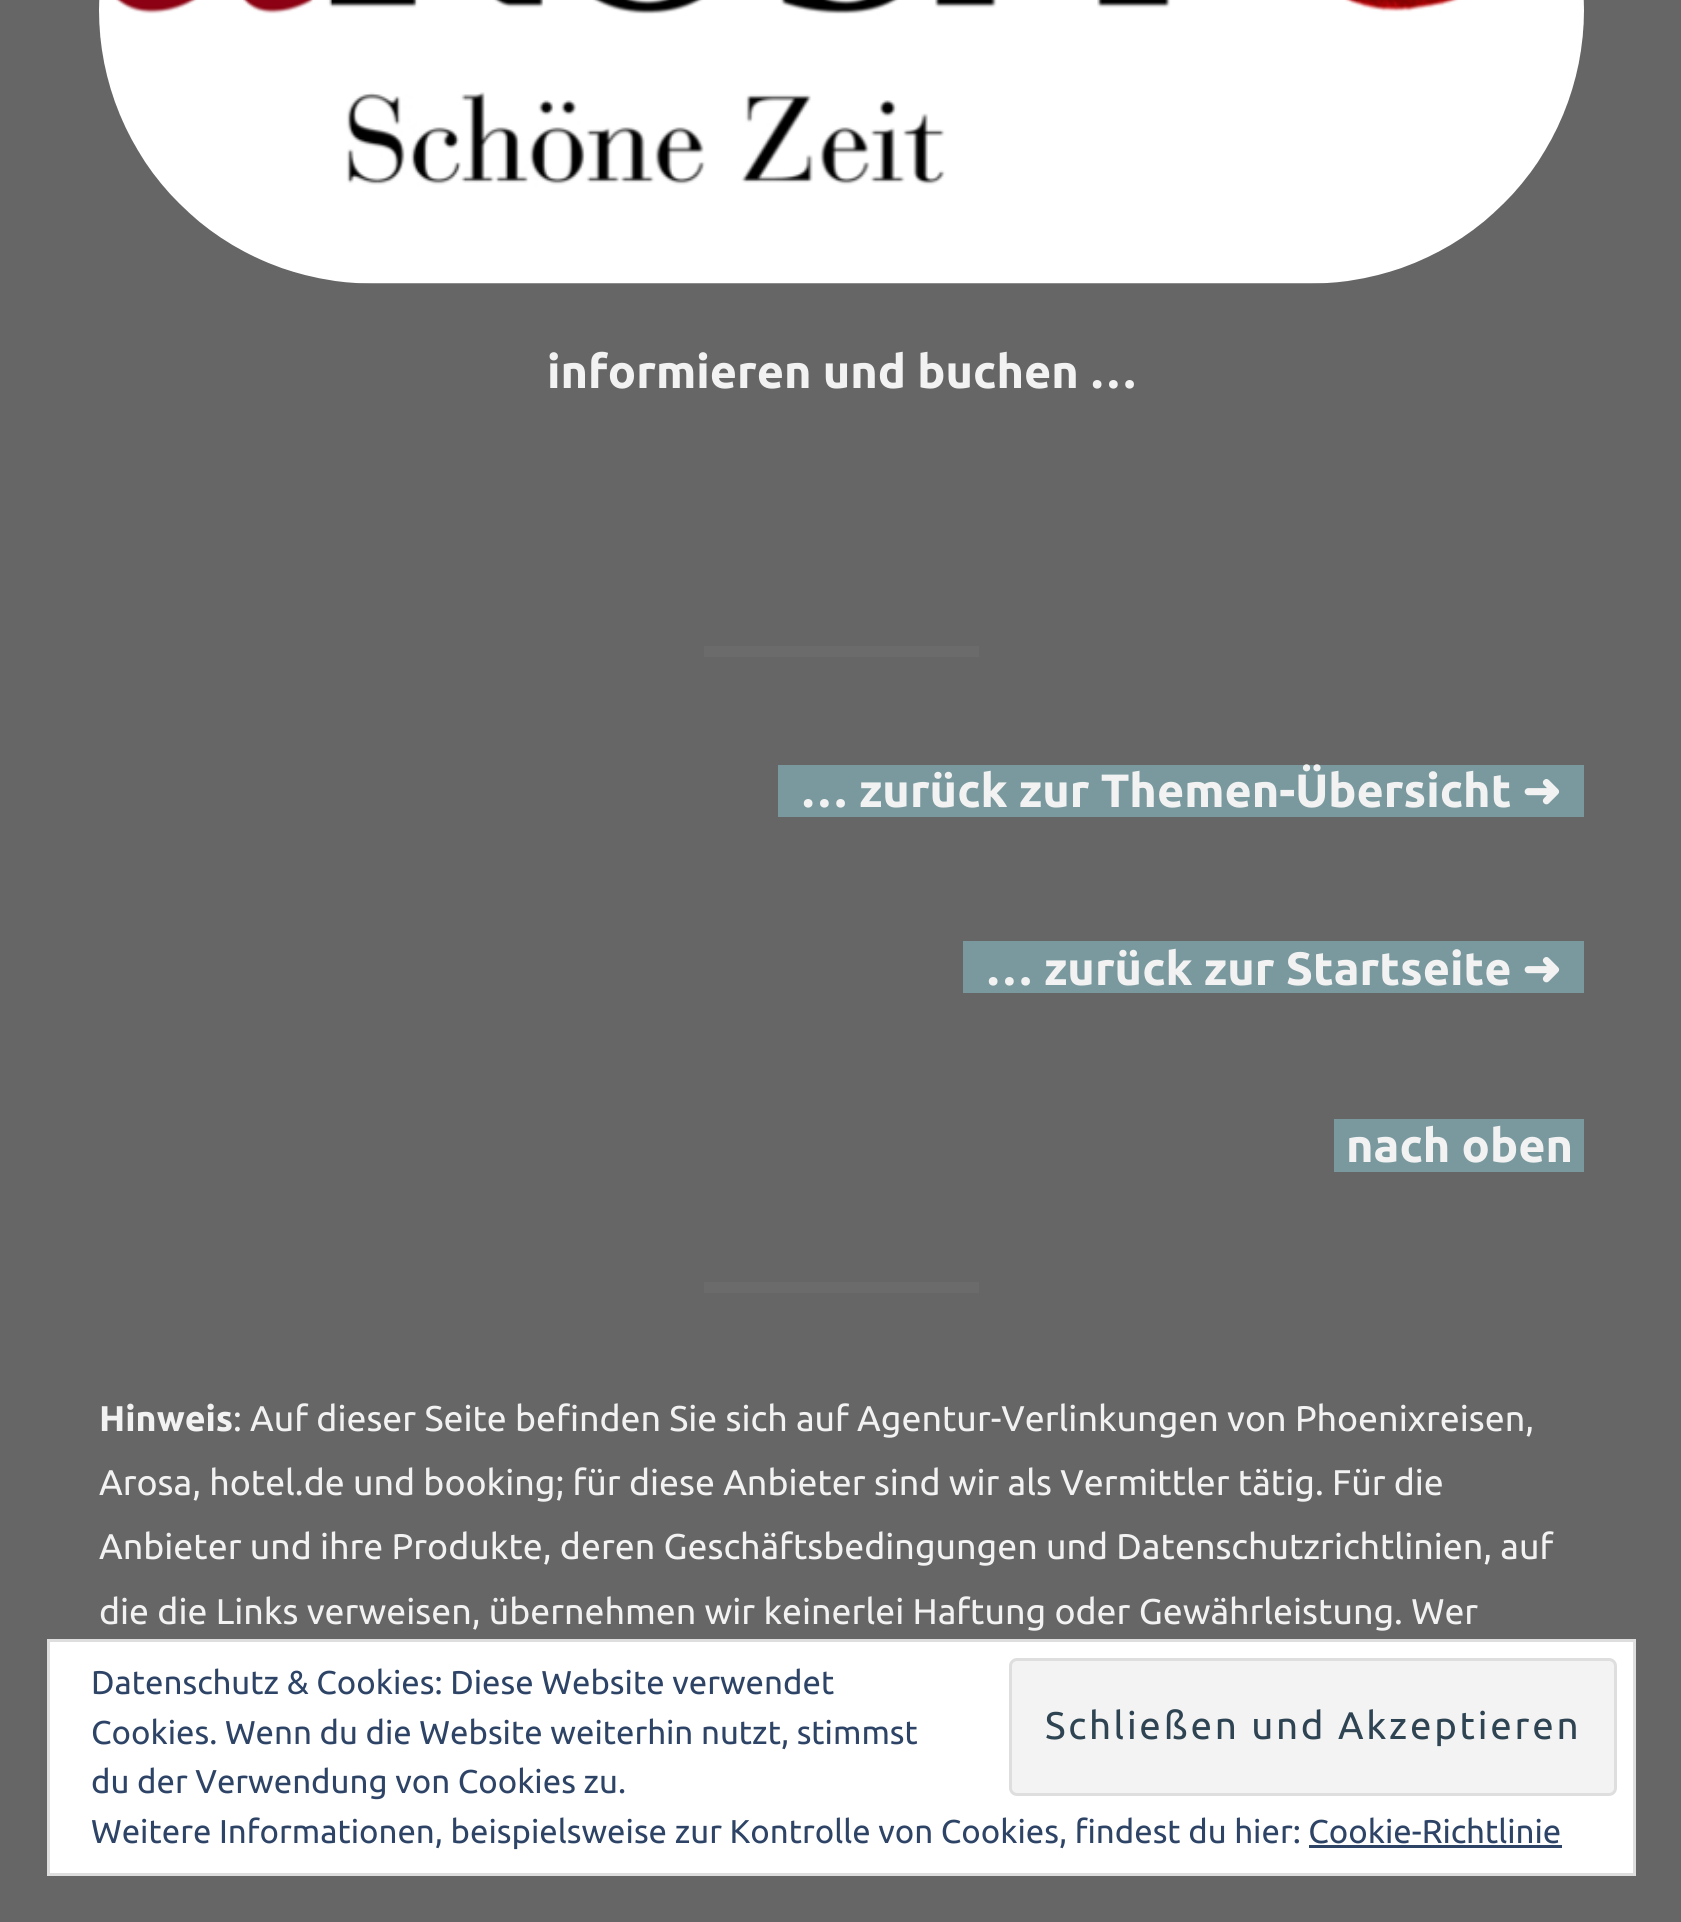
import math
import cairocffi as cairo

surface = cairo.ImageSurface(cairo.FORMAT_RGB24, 1681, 1922)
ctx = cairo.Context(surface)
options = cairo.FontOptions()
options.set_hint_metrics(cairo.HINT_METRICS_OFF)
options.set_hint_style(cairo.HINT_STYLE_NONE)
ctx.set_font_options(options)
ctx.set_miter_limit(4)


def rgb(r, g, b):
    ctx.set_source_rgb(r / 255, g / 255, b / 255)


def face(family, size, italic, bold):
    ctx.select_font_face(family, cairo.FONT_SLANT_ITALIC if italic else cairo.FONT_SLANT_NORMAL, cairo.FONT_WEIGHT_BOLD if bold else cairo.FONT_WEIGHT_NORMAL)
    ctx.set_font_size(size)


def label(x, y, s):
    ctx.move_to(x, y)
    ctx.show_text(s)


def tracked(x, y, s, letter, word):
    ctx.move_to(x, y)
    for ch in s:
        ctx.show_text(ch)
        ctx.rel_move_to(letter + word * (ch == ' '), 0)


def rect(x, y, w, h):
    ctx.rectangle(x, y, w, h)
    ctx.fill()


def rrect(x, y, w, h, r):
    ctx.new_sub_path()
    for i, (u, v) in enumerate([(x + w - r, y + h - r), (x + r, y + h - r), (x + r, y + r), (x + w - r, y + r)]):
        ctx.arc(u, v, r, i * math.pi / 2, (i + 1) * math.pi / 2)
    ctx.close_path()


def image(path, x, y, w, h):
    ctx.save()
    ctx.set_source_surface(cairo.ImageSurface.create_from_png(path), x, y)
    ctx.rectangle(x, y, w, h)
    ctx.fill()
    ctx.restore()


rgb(102, 102, 102)
ctx.paint()
image('image0.png', 99, 0, 1485, 284)
face('Ubuntu', 46.75, 0, 1)
rgb(242, 242, 242)
label(547, 388, 'informieren und buchen …')
rgb(107, 107, 107)
rect(704, 646, 275, 11)
rgb(121, 153, 158)
rect(778, 765, 806, 52)
rgb(242, 242, 242)
label(801, 807, '… zurück zur Themen-Übersicht')
face('DejaVu Sans', 46.75, 0, 1)
label(1522, 807, '➜')
rgb(121, 153, 158)
rect(963, 941, 621, 52)
face('Ubuntu', 46.75, 0, 1)
rgb(242, 242, 242)
label(986, 985, '… zurück zur Startseite')
face('DejaVu Sans', 46.75, 0, 1)
label(1522, 985, '➜')
rgb(121, 153, 158)
rect(1334, 1119, 250, 53)
face('Ubuntu', 46.75, 0, 1)
rgb(242, 242, 242)
label(1346, 1162, 'nach oben')
rgb(107, 107, 107)
rect(704, 1282, 275, 11)
face('Ubuntu', 35.75, 0, 1)
rgb(242, 242, 242)
label(99, 1431, 'Hinweis')
face('Ubuntu', 35.75, 0, 0)
label(233, 1431, ': Auf dieser Seite befinden Sie sich auf Agentur-Verlinkungen von Phoenixreisen,')
label(99, 1495, 'Arosa, hotel.de und booking; für diese Anbieter sind wir als Vermittler tätig. Für die')
label(99, 1559, 'Anbieter und ihre Produkte, deren Geschäftsbedingungen und Datenschutzrichtlinien, auf')
label(99, 1624, 'die die Links verweisen, übernehmen wir keinerlei Haftung oder Gewährleistung. Wer')
rgb(255, 255, 255)
ctx.rectangle(48.5, 1640.5, 1586, 234)
ctx.fill_preserve()
rgb(222, 222, 222)
ctx.set_line_width(3)
ctx.stroke()
face('Ubuntu', 33, 0, 0)
rgb(46, 68, 103)
label(91, 1694, 'Datenschutz & Cookies: Diese Website verwendet')
label(91, 1744, 'Cookies. Wenn du die Website weiterhin nutzt, stimmst')
rgb(243, 243, 243)
rrect(1010.5, 1659.5, 605, 135, 6.5)
ctx.fill_preserve()
rgb(222, 222, 222)
ctx.stroke()
face('Ubuntu', 38.5, 0, 0)
rgb(46, 68, 83)
tracked(1045, 1739, 'Schließen und Akzeptieren', 2.75, 0)
face('Ubuntu', 33, 0, 0)
rgb(46, 68, 103)
label(91, 1793, 'du der Verwendung von Cookies zu.')
label(91, 1843, 'Weitere Informationen, beispielsweise zur Kontrolle von Cookies, findest du hier: Cookie-Richtlinie')
rect(1309, 1845, 253, 3)
surface.write_to_png('render.png')
